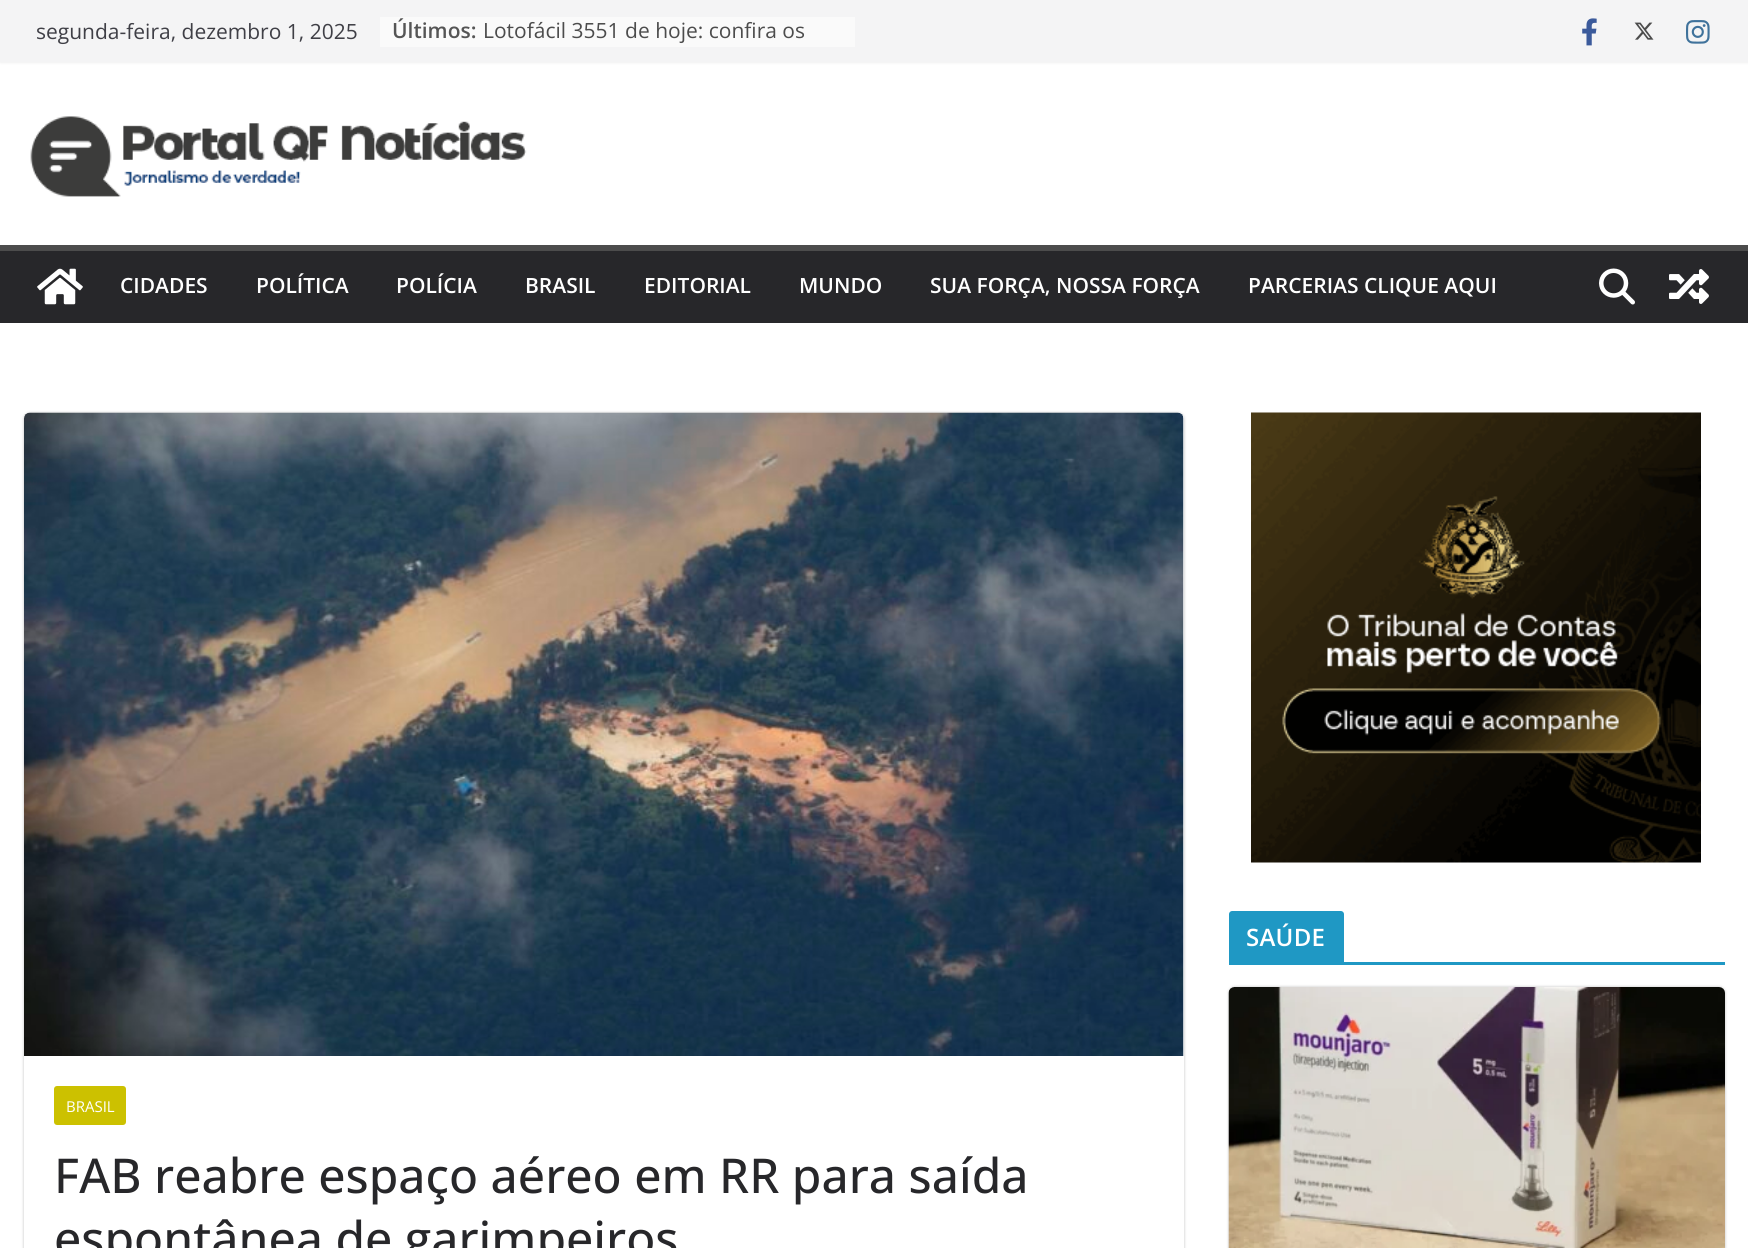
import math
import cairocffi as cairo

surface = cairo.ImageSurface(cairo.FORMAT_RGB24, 1748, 1248)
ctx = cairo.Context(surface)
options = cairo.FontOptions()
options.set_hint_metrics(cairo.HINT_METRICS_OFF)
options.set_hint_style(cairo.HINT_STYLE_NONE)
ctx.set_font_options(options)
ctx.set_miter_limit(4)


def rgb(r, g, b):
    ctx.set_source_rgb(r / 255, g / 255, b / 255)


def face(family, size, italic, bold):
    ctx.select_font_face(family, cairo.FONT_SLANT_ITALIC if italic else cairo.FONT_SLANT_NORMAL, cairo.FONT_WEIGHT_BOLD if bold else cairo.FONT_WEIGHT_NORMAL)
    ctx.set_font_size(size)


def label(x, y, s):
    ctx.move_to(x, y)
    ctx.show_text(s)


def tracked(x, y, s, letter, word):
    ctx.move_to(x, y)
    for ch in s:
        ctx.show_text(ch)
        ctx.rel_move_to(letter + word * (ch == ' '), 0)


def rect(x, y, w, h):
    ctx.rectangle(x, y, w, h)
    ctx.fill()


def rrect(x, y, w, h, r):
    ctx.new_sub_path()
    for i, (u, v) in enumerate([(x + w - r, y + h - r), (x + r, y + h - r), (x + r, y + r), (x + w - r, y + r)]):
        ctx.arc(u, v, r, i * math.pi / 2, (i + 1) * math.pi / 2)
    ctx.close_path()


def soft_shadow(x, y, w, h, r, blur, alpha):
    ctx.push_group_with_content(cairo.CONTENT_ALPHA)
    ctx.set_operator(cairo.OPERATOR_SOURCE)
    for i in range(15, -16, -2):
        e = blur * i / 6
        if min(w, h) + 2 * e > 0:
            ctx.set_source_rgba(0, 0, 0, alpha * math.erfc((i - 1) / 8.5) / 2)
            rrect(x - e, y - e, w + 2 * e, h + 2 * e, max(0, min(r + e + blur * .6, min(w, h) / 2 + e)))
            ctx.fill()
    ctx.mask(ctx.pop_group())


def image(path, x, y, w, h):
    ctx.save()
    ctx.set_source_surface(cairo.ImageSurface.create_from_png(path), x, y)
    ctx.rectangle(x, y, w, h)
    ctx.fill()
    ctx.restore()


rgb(255, 255, 255)
ctx.paint()
rgb(0, 0, 0)
soft_shadow(0, 0, 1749, 62, 0, 1.5, 0.1)
rgb(244, 244, 245)
rect(0, 0, 1748, 62)
face('Open Sans', 21, 0, 0)
rgb(63, 63, 70)
label(36, 39, 'segunda-feira, dezembro 1, 2025')
rgb(250, 250, 250)
rect(380, 17, 475, 30)
face('Open Sans SemiBold', 21, 0, 0)
rgb(85, 85, 85)
label(392, 38, 'Últimos:')
face('Open Sans', 21, 0, 0)
rgb(76, 76, 76)
label(483, 38, 'Lotofácil 3551 de hoje: confira os')
image('image0.png', 1582, 18, 15, 28)
image('image1.png', 1634, 22, 20, 18)
image('image2.png', 1686, 20, 24, 24)
image('image3.png', 30, 116, 497, 81)
rgb(39, 39, 42)
rect(0, 251, 1748, 72)
rgb(76, 76, 76)
rect(0, 245, 1748, 6)
image('image4.png', 37, 268, 46, 37)
face('Open Sans SemiBold', 21, 0, 0)
rgb(255, 255, 255)
label(120, 293, 'CIDADES')
label(256, 293, 'POLÍTICA')
label(396, 293, 'POLÍCIA')
label(525, 293, 'BRASIL')
label(644, 293, 'EDITORIAL')
label(799, 293, 'MUNDO')
label(930, 293, 'SUA FORÇA, NOSSA FORÇA')
label(1248, 293, 'PARCERIAS CLIQUE AQUI')
image('image5.png', 1599, 268, 36, 37)
image('image6.png', 1669, 269, 40, 35)
image('image7.png', 1251, 412, 450, 451)
rgb(31, 152, 196)
rect(1229, 962, 496, 3)
ctx.new_path()
ctx.move_to(1232, 911)
ctx.line_to(1341, 911)
ctx.curve_to(1342.5, 911, 1344, 912.5, 1344, 914)
ctx.line_to(1344, 962)
ctx.line_to(1229, 962)
ctx.line_to(1229, 914)
ctx.curve_to(1229, 912.5, 1230.5, 911, 1232, 911)
ctx.close_path()
ctx.fill()
face('Open Sans SemiBold', 24, 0, 0)
rgb(255, 255, 255)
tracked(1246, 946, 'SAÚDE', 0.25, 0)
rgb(0, 0, 0)
soft_shadow(1229, 987, 496, 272, 6, 1.5, 0.24)
image('image8.png', 1228, 987, 497, 261)
ctx.save()
ctx.set_fill_rule(cairo.FILL_RULE_EVEN_ODD)
ctx.new_path()
ctx.move_to(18, 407)
ctx.line_to(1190, 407)
ctx.line_to(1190, 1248)
ctx.line_to(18, 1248)
ctx.close_path()
ctx.move_to(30, 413)
ctx.line_to(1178, 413)
ctx.curve_to(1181.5, 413, 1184, 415.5, 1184, 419)
ctx.line_to(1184, 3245)
ctx.curve_to(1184, 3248.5, 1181.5, 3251, 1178, 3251)
ctx.line_to(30, 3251)
ctx.curve_to(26.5, 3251, 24, 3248.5, 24, 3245)
ctx.line_to(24, 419)
ctx.curve_to(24, 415.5, 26.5, 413, 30, 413)
ctx.close_path()
ctx.clip()
soft_shadow(24, 413, 1160, 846, 6, 1.5, 0.24)
ctx.restore()
image('image9.png', 24, 412, 1160, 644)
rgb(204, 193, 0)
rrect(54, 1086, 72, 39, 3)
ctx.fill()
face('Open Sans', 15, 0, 0)
rgb(255, 255, 255)
label(66, 1112, 'BRASIL')
face('Open Sans Medium', 48, 0, 0)
rgb(39, 39, 42)
label(54, 1193, 'FAB reabre espaço aéreo em RR para saída')
label(54, 1256, 'espontânea de garimpeiros')
surface.write_to_png('render.png')
